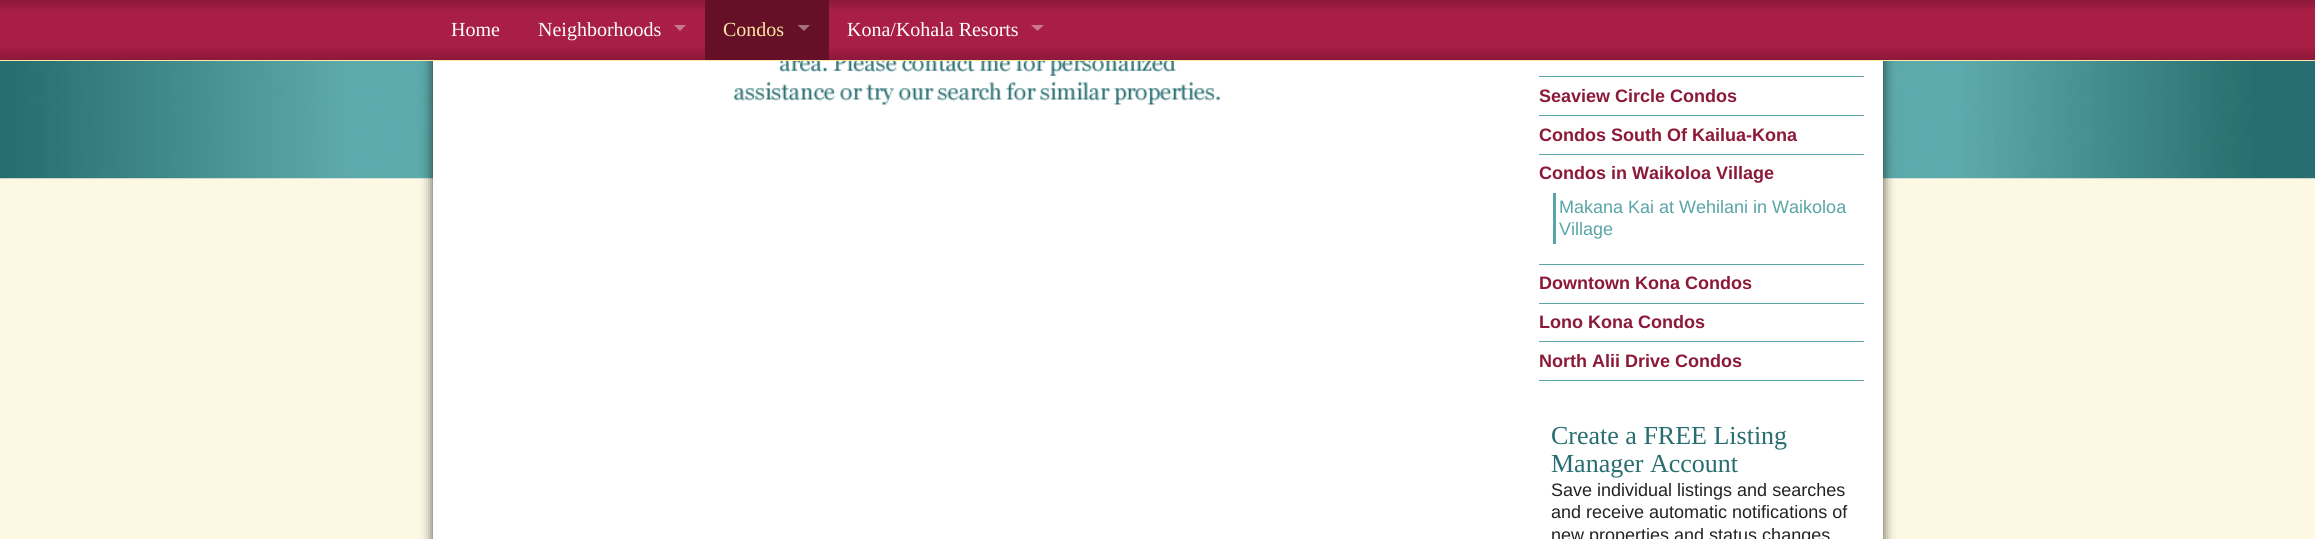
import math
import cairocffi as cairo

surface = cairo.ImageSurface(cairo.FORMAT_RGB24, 2315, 539)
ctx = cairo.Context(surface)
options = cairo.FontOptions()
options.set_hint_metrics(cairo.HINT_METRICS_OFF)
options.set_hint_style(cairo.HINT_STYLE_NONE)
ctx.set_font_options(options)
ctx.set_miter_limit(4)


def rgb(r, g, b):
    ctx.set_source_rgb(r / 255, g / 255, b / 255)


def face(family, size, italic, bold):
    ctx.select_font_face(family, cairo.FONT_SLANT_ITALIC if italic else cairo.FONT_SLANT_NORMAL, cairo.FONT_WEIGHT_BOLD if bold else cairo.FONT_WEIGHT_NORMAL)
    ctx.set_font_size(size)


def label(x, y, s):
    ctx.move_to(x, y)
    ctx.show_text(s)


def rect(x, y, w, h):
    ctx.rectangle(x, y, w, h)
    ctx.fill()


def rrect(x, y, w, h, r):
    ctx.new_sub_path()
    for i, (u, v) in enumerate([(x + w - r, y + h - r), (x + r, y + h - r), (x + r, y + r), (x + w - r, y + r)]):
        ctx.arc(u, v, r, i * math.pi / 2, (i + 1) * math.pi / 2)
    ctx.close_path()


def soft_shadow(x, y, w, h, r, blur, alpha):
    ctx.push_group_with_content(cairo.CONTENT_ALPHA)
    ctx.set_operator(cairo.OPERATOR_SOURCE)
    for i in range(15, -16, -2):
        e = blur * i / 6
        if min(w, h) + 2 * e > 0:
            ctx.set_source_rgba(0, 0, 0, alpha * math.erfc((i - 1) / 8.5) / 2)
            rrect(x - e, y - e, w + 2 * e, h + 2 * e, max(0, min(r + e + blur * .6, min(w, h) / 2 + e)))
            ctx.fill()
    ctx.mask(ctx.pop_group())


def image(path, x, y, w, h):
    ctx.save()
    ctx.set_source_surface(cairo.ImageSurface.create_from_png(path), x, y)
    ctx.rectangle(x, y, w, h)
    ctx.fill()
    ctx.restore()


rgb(253, 248, 228)
ctx.paint()
image('image0.png', 0, 61, 2315, 118)
rgb(0, 0, 0)
soft_shadow(433, -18, 1450, 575, 0, 6, 0.7)
gradient = cairo.LinearGradient(1158, 0, 1158, 60)
gradient.add_color_stop_rgba(0.01, 0.549, 0.098, 0.227, 1)
gradient.add_color_stop_rgba(0.19, 0.659, 0.118, 0.267, 1)
gradient.add_color_stop_rgba(0.76, 0.659, 0.118, 0.267, 1)
gradient.add_color_stop_rgba(1, 0.549, 0.098, 0.227, 1)
ctx.set_source(gradient)
rect(0, 0, 2315, 60)
rgb(252, 233, 167)
rect(0, 60, 2315, 1)
face('Liberation Serif', 20, 0, 0)
rgb(255, 255, 255)
label(451, 36, 'Home')
label(538, 36, 'Neighborhoods')
rgb(203, 120, 143)
ctx.new_path()
ctx.move_to(674, 25)
ctx.line_to(686, 25)
ctx.line_to(680, 31)
ctx.close_path()
ctx.fill()
rgb(102, 16, 40)
rect(705, 0, 124, 60)
rgb(252, 231, 167)
label(723, 36, 'Condos')
rgb(163, 112, 126)
ctx.new_path()
ctx.move_to(797.5, 25)
ctx.line_to(810, 25)
ctx.line_to(804, 31)
ctx.close_path()
ctx.fill()
rgb(255, 255, 255)
label(847, 36, 'Kona/Kohala Resorts')
rgb(203, 120, 143)
ctx.new_path()
ctx.move_to(1031, 25)
ctx.line_to(1044, 25)
ctx.line_to(1037.5, 31)
ctx.close_path()
ctx.fill()
rgb(255, 255, 255)
rect(433, 61, 1450, 478)
image('image1.png', 733, 61, 488, 44)
rgb(89, 164, 166)
rect(1539, 76, 325, 1)
rect(1539, 115, 325, 1)
face('Liberation Sans', 18, 0, 1)
rgb(140, 25, 57)
label(1539, 102, 'Seaview Circle Condos')
rgb(89, 164, 166)
rect(1539, 154, 325, 1)
rgb(140, 25, 57)
label(1539, 141, 'Condos South Of Kailua-Kona')
rgb(89, 164, 166)
rect(1539, 264, 325, 1)
rgb(140, 25, 57)
label(1539, 179, 'Condos in Waikoloa Village')
rgb(89, 164, 166)
rect(1553, 193, 3, 51)
face('Liberation Sans', 18, 0, 0)
label(1559, 213, 'Makana Kai at Wehilani in Waikoloa')
label(1559, 235, 'Village')
rect(1539, 303, 325, 1)
face('Liberation Sans', 18, 0, 1)
rgb(140, 25, 57)
label(1539, 289, 'Downtown Kona Condos')
rgb(89, 164, 166)
rect(1539, 341, 325, 1)
rgb(140, 25, 57)
label(1539, 328, 'Lono Kona Condos')
rgb(89, 164, 166)
rect(1539, 380, 325, 1)
rgb(140, 25, 57)
label(1539, 367, 'North Alii Drive Condos')
face('Liberation Serif', 26, 0, 0)
rgb(40, 109, 111)
label(1551, 444, 'Create a FREE Listing')
label(1551, 472, 'Manager Account')
face('Liberation Sans', 18, 0, 0)
rgb(34, 34, 34)
label(1551, 496, 'Save individual listings and searches')
label(1551, 518, 'and receive automatic notifications of')
label(1551, 541, 'new properties and status changes')
surface.write_to_png('render.png')
